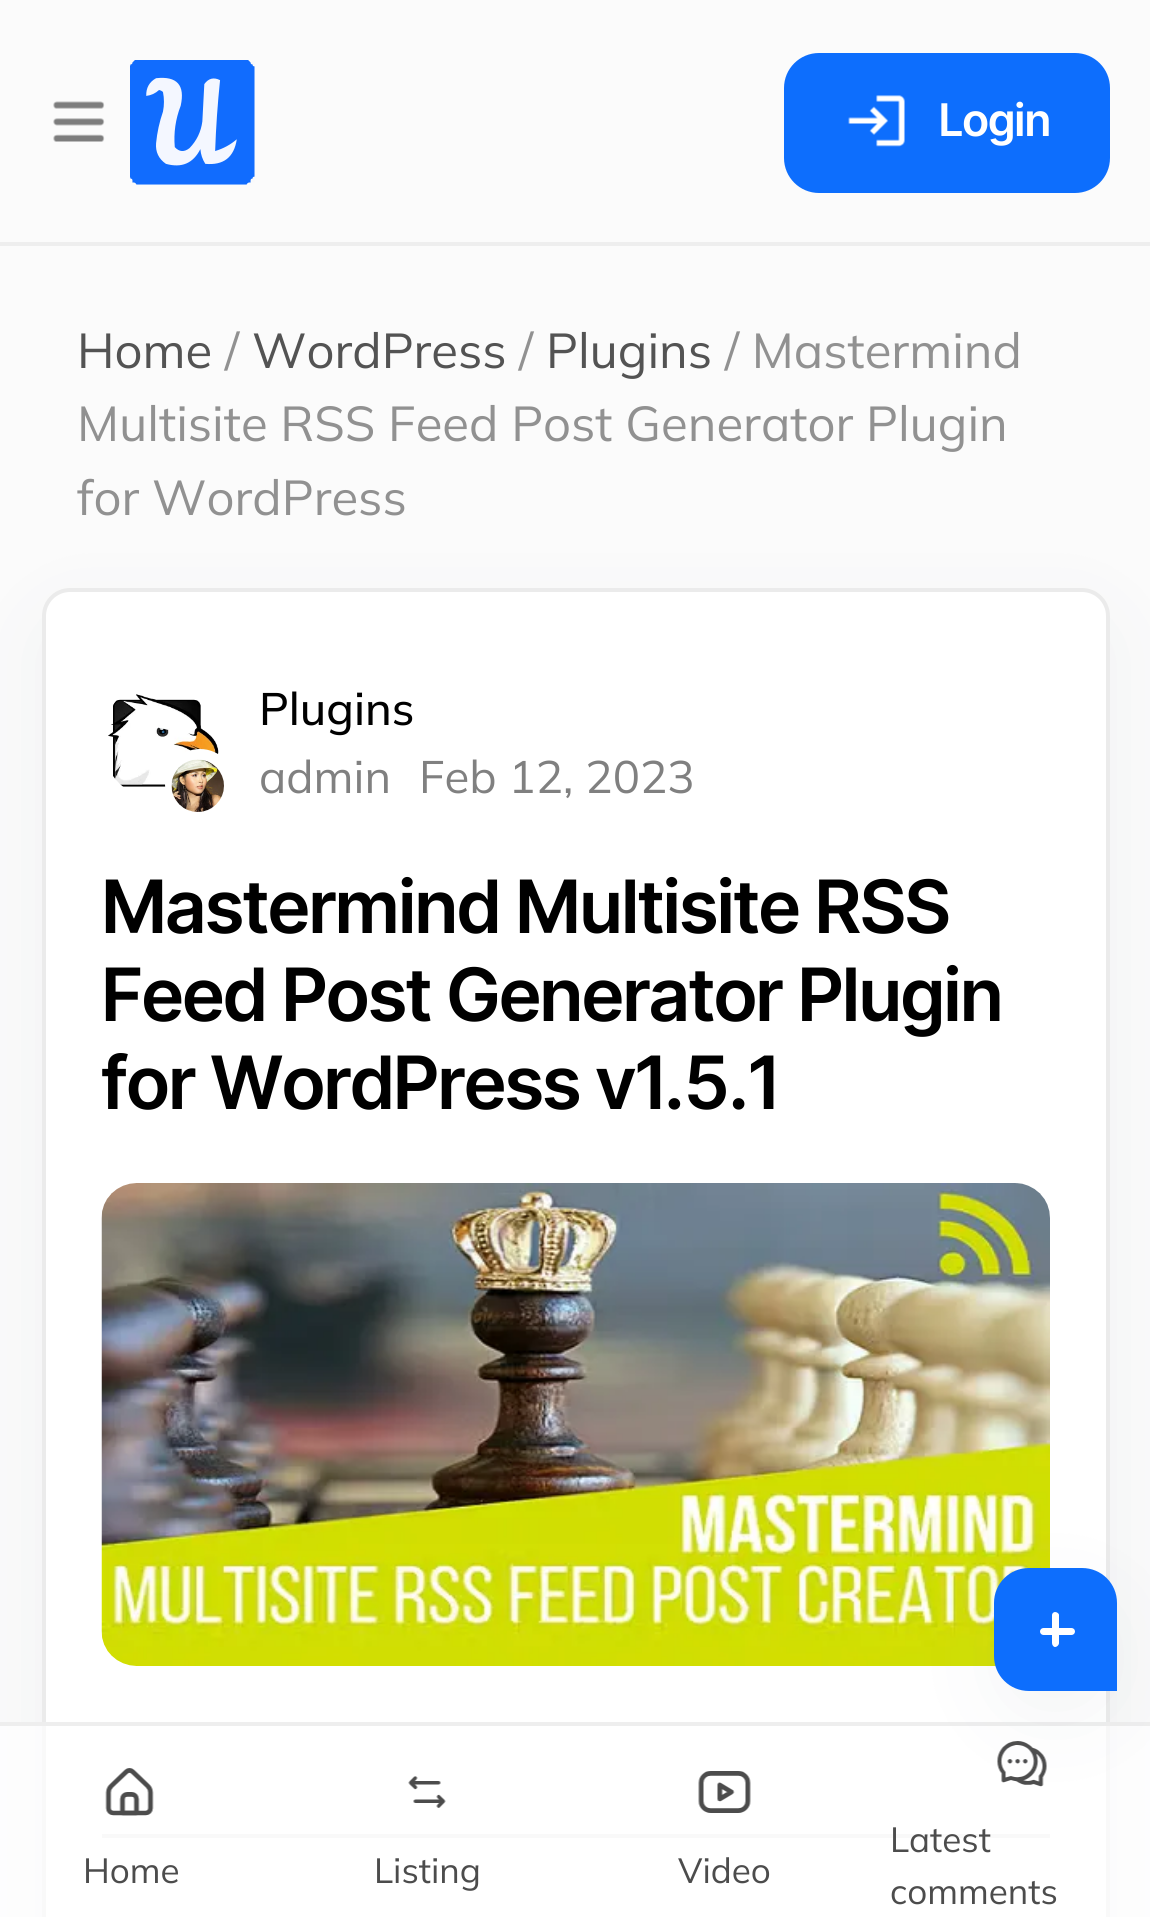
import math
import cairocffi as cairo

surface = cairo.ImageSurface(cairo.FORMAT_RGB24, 1150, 1917)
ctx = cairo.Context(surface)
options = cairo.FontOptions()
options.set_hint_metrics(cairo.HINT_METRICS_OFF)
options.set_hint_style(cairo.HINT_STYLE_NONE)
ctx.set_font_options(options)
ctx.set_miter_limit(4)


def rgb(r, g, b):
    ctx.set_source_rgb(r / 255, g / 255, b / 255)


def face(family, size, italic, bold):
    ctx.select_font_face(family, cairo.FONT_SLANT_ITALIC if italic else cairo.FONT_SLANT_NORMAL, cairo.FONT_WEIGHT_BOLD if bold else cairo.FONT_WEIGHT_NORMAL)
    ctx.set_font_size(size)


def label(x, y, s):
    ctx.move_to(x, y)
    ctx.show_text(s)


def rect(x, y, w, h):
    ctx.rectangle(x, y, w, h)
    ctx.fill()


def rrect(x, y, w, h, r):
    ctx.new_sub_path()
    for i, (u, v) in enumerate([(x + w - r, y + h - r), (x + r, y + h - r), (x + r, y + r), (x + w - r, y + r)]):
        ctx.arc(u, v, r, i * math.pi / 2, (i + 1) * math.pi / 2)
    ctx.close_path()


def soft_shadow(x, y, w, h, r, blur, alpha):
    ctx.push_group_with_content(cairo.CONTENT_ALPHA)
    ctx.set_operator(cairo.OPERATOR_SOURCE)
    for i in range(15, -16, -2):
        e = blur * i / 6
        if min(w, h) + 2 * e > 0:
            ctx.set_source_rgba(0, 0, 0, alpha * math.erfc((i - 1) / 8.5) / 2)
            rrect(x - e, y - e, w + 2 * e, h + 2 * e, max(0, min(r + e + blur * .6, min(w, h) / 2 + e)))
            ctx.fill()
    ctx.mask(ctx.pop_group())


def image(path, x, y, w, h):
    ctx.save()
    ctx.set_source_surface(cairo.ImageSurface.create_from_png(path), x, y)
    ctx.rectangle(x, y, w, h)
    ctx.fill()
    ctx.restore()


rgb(251, 251, 251)
ctx.paint()
rgb(238, 238, 238)
rect(0, 242, 1150, 4)
image('image0.png', 53, 101, 52, 41)
image('image1.png', 130, 60, 125, 125)
rgb(13, 110, 253)
rrect(786, 55, 322, 136, 33)
ctx.fill_preserve()
ctx.set_line_width(4)
ctx.stroke()
image('image2.png', 848, 95, 57, 52)
face('Inter Tight SemiBold', 45, 0, 0)
rgb(255, 255, 255)
label(939, 136, 'Login')
face('Mulish', 49, 0, 0)
rgb(83, 83, 83)
label(77, 368, 'Home')
rgb(145, 145, 145)
label(225, 368, '/')
rgb(83, 83, 83)
label(252, 368, 'WordPress')
rgb(145, 145, 145)
label(519, 368, '/')
rgb(83, 83, 83)
label(546, 368, 'Plugins')
rgb(145, 145, 145)
label(725, 368, '/ Mastermind')
label(77, 441, 'Multisite RSS Feed Post Generator Plugin')
label(77, 515, 'for WordPress')
rgb(149, 157, 165)
soft_shadow(42, 616, 1068, 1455, 28, 42, 0.1)
rgb(255, 255, 255)
rrect(42, 588, 1068, 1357, 28)
ctx.fill()
rrect(44, 590, 1064, 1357, 26)
ctx.set_source_rgba(0, 0, 0, 0.08)
ctx.stroke()
image('image3.png', 108, 694, 111, 93)
rgb(255, 255, 255)
ctx.arc(200, 784, 35, 0, 2 * math.pi)
ctx.fill()
image('image4.png', 171, 759, 53, 53)
face('Mulish Medium', 45.5, 0, 0)
rgb(0, 0, 0)
label(259, 725, 'Plugins')
face('Mulish', 45.5, 0, 0)
rgb(128, 128, 128)
label(259, 793, 'admin')
label(419, 793, 'Feb 12, 2023')
face('Inter Tight SemiBold', 73.5, 0, 0)
rgb(0, 0, 0)
label(102, 933, 'Mastermind Multisite RSS')
label(102, 1021, 'Feed Post Generator Plugin')
label(102, 1109, 'for WordPress v1.5.1')
image('image5.png', 101, 1183, 949, 483)
rgb(234, 234, 234)
rect(102, 1834, 948, 4)
ctx.set_source_rgba(1, 1, 1, 0.7)
rect(0, 1726, 1150, 191)
rgb(238, 238, 238)
rect(0, 1722, 1150, 4)
image('image9.png', 997, 1741, 50, 46)
rgb(149, 157, 165)
soft_shadow(994, 1596, 123, 123, 35, 42, 0.1)
rgb(13, 110, 253)
ctx.new_path()
ctx.move_to(1029, 1568)
ctx.line_to(1082, 1568)
ctx.curve_to(1101.5, 1568, 1117, 1583.5, 1117, 1603)
ctx.line_to(1117, 1691)
ctx.line_to(1029, 1691)
ctx.curve_to(1009.5, 1691, 994, 1675.5, 994, 1656)
ctx.line_to(994, 1603)
ctx.curve_to(994, 1583.5, 1009.5, 1568, 1029, 1568)
ctx.close_path()
ctx.fill()
rgb(255, 255, 255)
rrect(1040, 1628, 35, 7, 3.5)
ctx.fill()
ctx.new_path()
ctx.move_to(1059, 1615)
ctx.line_to(1059, 1643)
ctx.curve_to(1059, 1645, 1057, 1647, 1055, 1647)
ctx.curve_to(1053.5, 1647, 1052, 1645, 1052, 1643)
ctx.line_to(1052, 1615)
ctx.curve_to(1052, 1613.5, 1053.5, 1612, 1055, 1612)
ctx.curve_to(1057, 1612, 1059, 1613.5, 1059, 1615)
ctx.close_path()
ctx.fill()
image('image6.png', 105, 1768, 49, 48)
face('Mulish', 35, 0, 0)
rgb(76, 76, 76)
label(83, 1883, 'Home')
image('image7.png', 408, 1776, 38, 32)
label(374, 1883, 'Listing')
image('image8.png', 698, 1771, 53, 42)
label(678, 1883, 'Video')
label(890, 1852, 'Latest')
label(890, 1904, 'comments')
surface.write_to_png('render.png')
